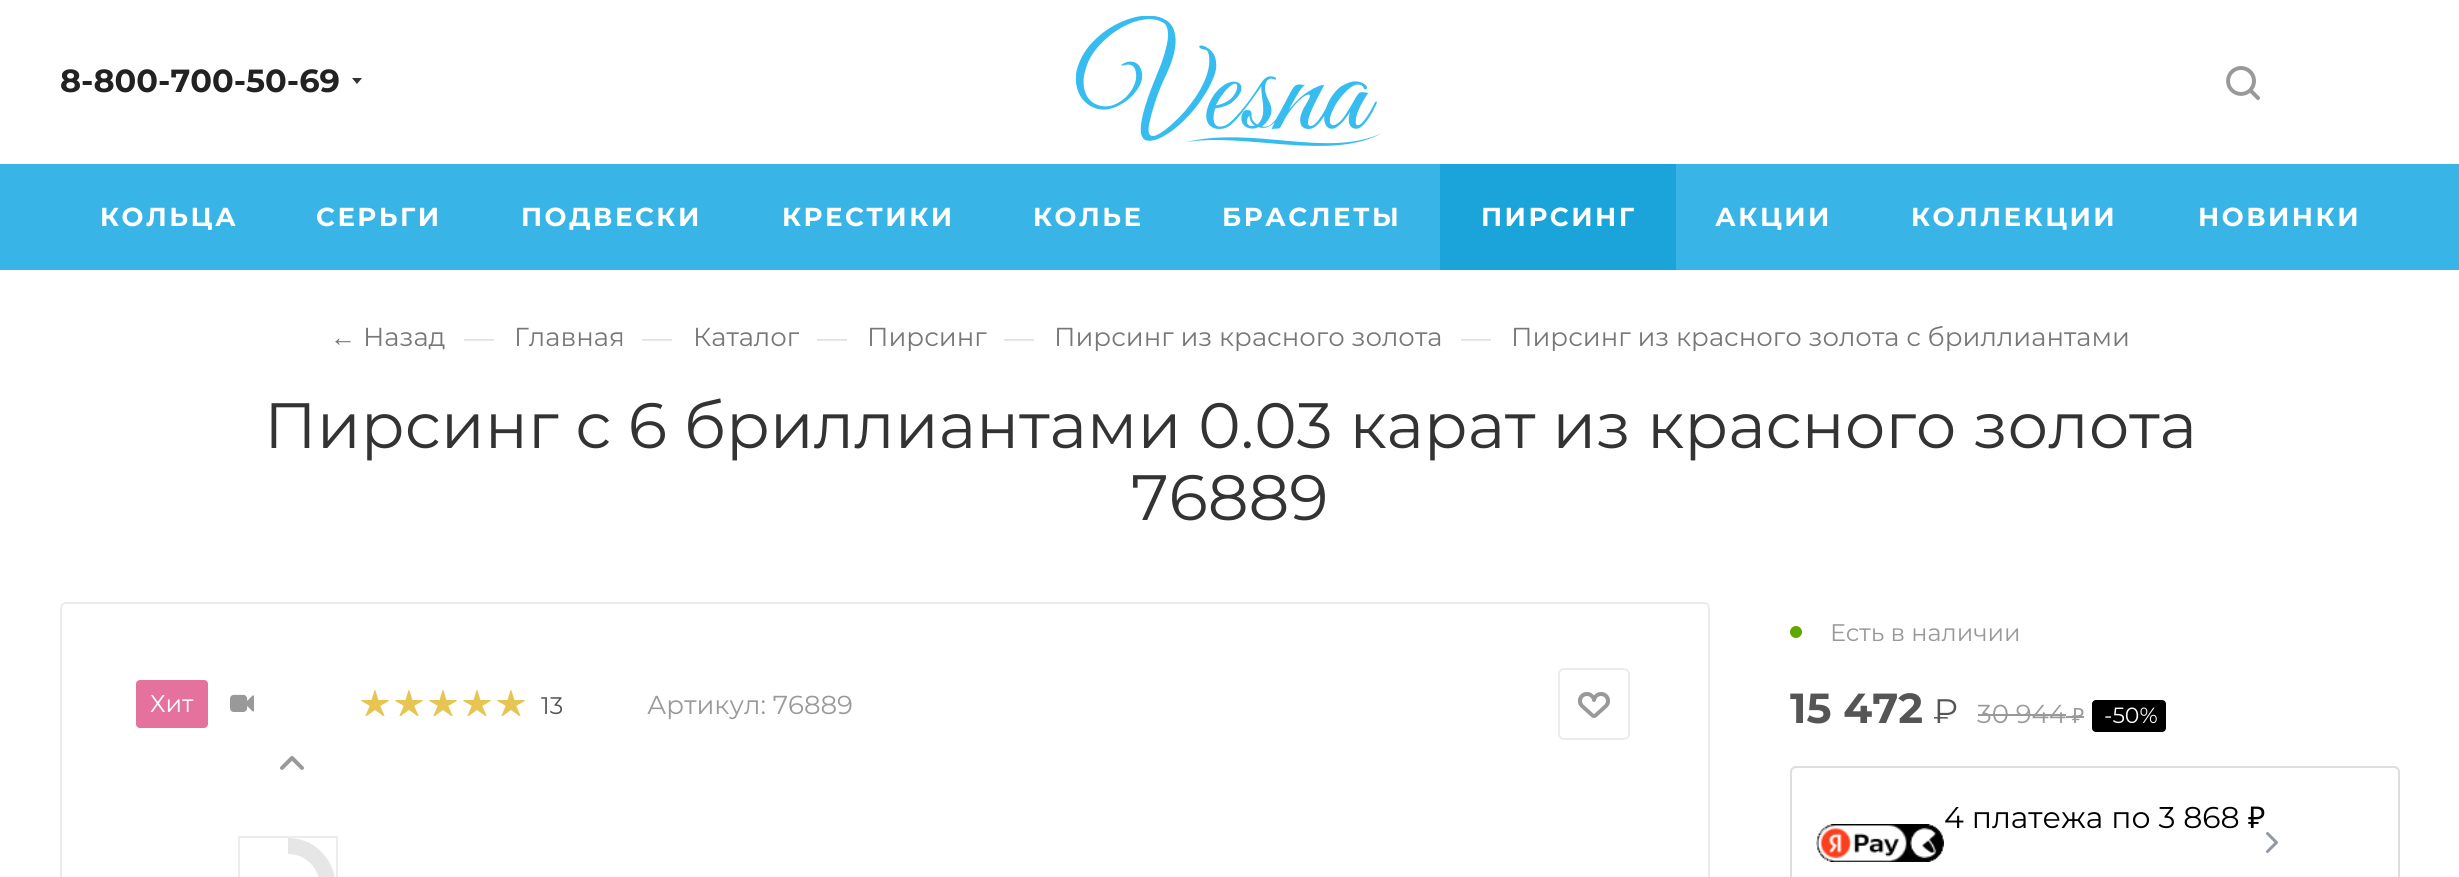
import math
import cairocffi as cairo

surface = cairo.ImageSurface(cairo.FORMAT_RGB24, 2459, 877)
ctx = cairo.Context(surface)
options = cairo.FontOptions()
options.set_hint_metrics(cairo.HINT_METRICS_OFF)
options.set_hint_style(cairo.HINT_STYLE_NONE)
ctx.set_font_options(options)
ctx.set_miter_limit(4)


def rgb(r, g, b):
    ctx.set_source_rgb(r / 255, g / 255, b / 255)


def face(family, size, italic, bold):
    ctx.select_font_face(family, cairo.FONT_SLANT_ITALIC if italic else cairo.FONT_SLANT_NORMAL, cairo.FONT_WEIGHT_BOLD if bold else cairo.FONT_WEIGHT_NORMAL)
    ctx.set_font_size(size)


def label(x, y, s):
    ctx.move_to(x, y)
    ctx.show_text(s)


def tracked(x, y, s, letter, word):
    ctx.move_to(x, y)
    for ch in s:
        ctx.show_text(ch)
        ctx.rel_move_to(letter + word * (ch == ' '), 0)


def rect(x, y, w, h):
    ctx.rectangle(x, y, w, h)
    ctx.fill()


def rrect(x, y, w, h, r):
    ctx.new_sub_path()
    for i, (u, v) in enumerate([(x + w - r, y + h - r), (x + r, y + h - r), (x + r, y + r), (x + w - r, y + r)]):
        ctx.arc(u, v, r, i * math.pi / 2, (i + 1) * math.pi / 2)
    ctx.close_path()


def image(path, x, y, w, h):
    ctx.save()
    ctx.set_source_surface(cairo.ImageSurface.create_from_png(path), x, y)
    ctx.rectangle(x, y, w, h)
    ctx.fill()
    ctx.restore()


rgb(255, 255, 255)
ctx.paint()
face('Montserrat', 32, 0, 1)
rgb(34, 34, 34)
label(60, 92, '8-800-700-50-69')
image('image0.png', 352, 78, 10, 6)
image('image1.png', 1076, 16, 306, 130)
image('image2.png', 2226, 66, 34, 34)
rgb(56, 181, 230)
rect(0, 164, 2459, 106)
face('Montserrat', 26, 0, 1)
rgb(255, 255, 255)
tracked(100, 226, 'КОЛЬЦА', 2.5, 0)
tracked(316, 226, 'СЕРЬГИ', 2.5, 0)
tracked(521, 226, 'ПОДВЕСКИ', 2.5, 0)
tracked(782, 226, 'КРЕСТИКИ', 2.5, 0)
tracked(1033, 226, 'КОЛЬЕ', 2.5, 0)
tracked(1222, 226, 'БРАСЛЕТЫ', 2.5, 0)
rgb(27, 164, 218)
rect(1440, 164, 236, 106)
rgb(255, 255, 255)
tracked(1481, 226, 'ПИРСИНГ', 2.5, 0)
tracked(1715, 226, 'АКЦИИ', 2.5, 0)
tracked(1911, 226, 'КОЛЛЕКЦИИ', 2.5, 0)
tracked(2198, 226, 'НОВИНКИ', 2.5, 0)
face('Liberation Sans', 26, 0, 0)
rgb(119, 119, 119)
label(330, 346, '←')
face('Montserrat', 26, 0, 0)
label(363, 346, 'Назад')
face('Montserrat', 30, 0, 0)
rgb(221, 221, 221)
label(464, 348, '—')
face('Montserrat', 26, 0, 0)
rgb(119, 119, 119)
label(514, 346, 'Главная')
face('Montserrat', 30, 0, 0)
rgb(221, 221, 221)
label(642, 348, '—')
face('Montserrat', 26, 0, 0)
rgb(119, 119, 119)
label(693, 346, 'Каталог')
face('Montserrat', 30, 0, 0)
rgb(221, 221, 221)
label(817, 348, '—')
face('Montserrat', 26, 0, 0)
rgb(119, 119, 119)
label(867, 346, 'Пирсинг')
face('Montserrat', 30, 0, 0)
rgb(221, 221, 221)
label(1004, 348, '—')
face('Montserrat', 26, 0, 0)
rgb(119, 119, 119)
label(1054, 346, 'Пирсинг из красного золота')
face('Montserrat', 30, 0, 0)
rgb(221, 221, 221)
label(1461, 348, '—')
face('Montserrat', 26, 0, 0)
rgb(119, 119, 119)
label(1511, 346, 'Пирсинг из красного золота с бриллиантами')
face('Montserrat', 64, 0, 0)
rgb(51, 51, 51)
label(264, 448, 'Пирсинг с 6 бриллиантами 0.03 карат из красного золота')
label(1131, 520, '76889')
rrect(61, 603, 1648, 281, 5)
rgb(236, 236, 236)
ctx.stroke()
rgb(228, 114, 156)
rrect(136, 680, 72, 48, 4)
ctx.fill()
face('Montserrat', 24, 0, 0)
rgb(255, 255, 255)
label(150, 712, 'Хит')
image('image3.png', 230, 694, 24, 18)
image('image4.png', 361, 690, 28, 26)
image('image4.png', 395, 690, 28, 26)
image('image4.png', 429, 690, 28, 26)
image('image4.png', 463, 690, 28, 26)
image('image4.png', 497, 690, 28, 26)
rgb(85, 85, 85)
label(541, 714, '13')
face('Montserrat', 26, 0, 0)
rgb(153, 153, 153)
label(647, 714, 'Артикул: 76889')
rrect(1559, 669, 70, 70, 5)
rgb(236, 236, 236)
ctx.stroke()
image('image5.png', 1578, 692, 32, 26)
image('image6.png', 280, 756, 24, 14)
ctx.rectangle(239, 837, 98, 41)
ctx.stroke()
rgb(230, 230, 230)
ctx.new_path()
ctx.move_to(288, 838)
ctx.curve_to(330, 838, 352, 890, 322, 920)
ctx.line_to(311, 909)
ctx.curve_to(331, 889, 316, 854, 288, 854)
ctx.close_path()
ctx.fill()
rgb(95, 168, 0)
ctx.arc(1796, 632, 6, 0, 2 * math.pi)
ctx.fill()
face('Montserrat', 24, 0, 0)
rgb(153, 153, 153)
label(1830, 641, 'Есть в наличии')
face('Montserrat', 42, 0, 1)
rgb(85, 85, 85)
label(1790, 723, '15 472')
face('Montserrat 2', 34, 0, 0)
label(1933, 723, '₽')
face('Montserrat', 26, 0, 0)
rgb(153, 153, 153)
label(1977, 723, '30 944')
rect(1978, 714, 88, 2)
face('Noto Sans', 21, 0, 0)
label(2072, 723, '₽')
rect(2066, 716, 18, 2)
rgb(0, 0, 0)
rrect(2092, 700, 74, 32, 4)
ctx.fill()
face('Montserrat', 22, 0, 0)
rgb(255, 255, 255)
label(2104, 723, '-50%')
rrect(1791, 767, 608, 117, 5)
rgb(222, 222, 222)
ctx.stroke()
face('Montserrat', 30, 0, 0)
rgb(0, 0, 0)
label(1944, 828, '4 платежа по 3 868')
face('Noto Sans', 30, 0, 0)
label(2248, 828, '₽')
image('image7.png', 1816, 824, 128, 38)
image('image8.png', 2266, 832, 12, 21)
surface.write_to_png('render.png')
